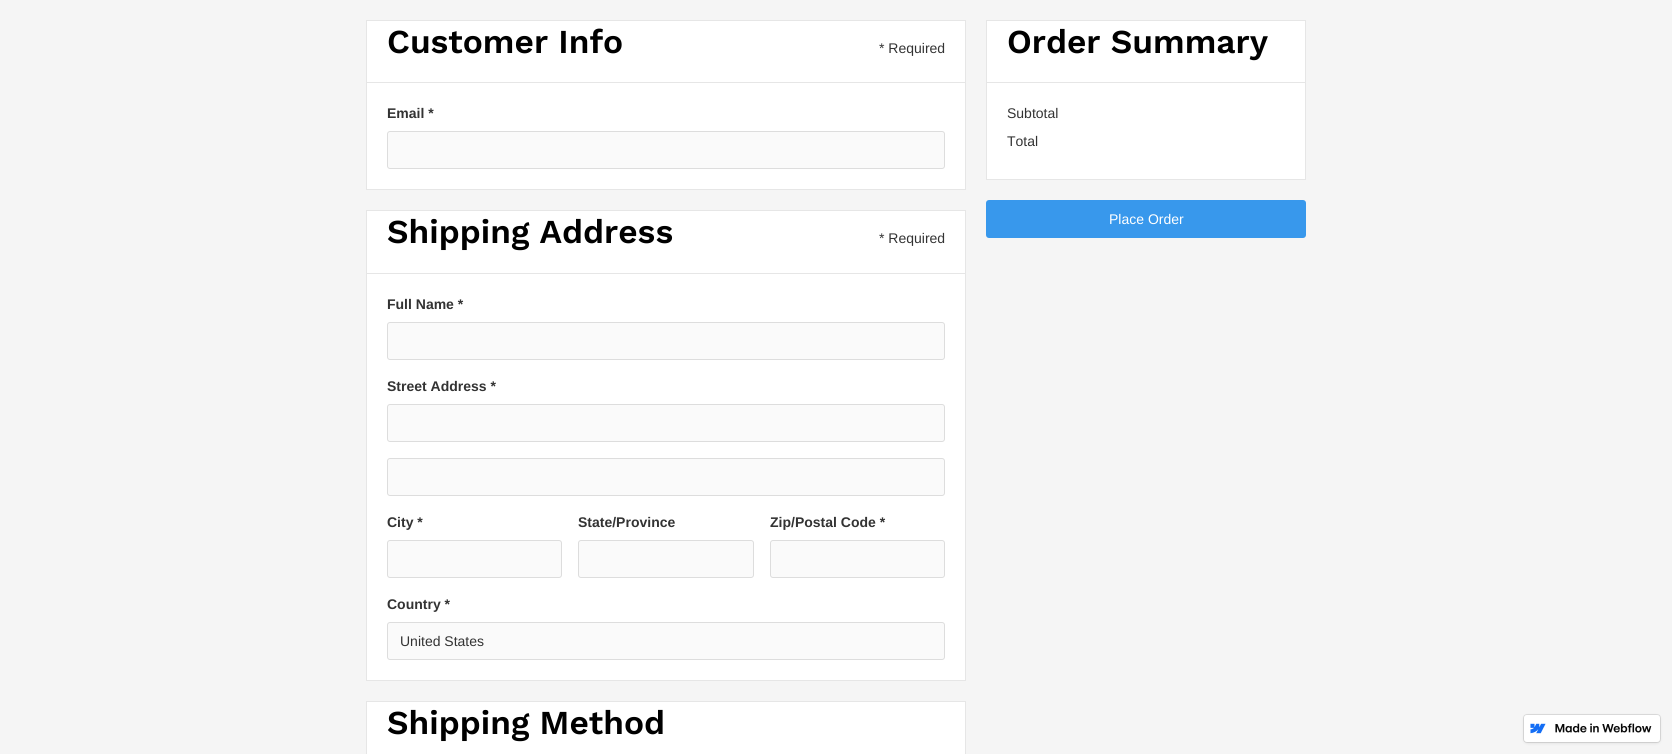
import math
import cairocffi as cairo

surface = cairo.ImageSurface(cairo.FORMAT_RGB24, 1672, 754)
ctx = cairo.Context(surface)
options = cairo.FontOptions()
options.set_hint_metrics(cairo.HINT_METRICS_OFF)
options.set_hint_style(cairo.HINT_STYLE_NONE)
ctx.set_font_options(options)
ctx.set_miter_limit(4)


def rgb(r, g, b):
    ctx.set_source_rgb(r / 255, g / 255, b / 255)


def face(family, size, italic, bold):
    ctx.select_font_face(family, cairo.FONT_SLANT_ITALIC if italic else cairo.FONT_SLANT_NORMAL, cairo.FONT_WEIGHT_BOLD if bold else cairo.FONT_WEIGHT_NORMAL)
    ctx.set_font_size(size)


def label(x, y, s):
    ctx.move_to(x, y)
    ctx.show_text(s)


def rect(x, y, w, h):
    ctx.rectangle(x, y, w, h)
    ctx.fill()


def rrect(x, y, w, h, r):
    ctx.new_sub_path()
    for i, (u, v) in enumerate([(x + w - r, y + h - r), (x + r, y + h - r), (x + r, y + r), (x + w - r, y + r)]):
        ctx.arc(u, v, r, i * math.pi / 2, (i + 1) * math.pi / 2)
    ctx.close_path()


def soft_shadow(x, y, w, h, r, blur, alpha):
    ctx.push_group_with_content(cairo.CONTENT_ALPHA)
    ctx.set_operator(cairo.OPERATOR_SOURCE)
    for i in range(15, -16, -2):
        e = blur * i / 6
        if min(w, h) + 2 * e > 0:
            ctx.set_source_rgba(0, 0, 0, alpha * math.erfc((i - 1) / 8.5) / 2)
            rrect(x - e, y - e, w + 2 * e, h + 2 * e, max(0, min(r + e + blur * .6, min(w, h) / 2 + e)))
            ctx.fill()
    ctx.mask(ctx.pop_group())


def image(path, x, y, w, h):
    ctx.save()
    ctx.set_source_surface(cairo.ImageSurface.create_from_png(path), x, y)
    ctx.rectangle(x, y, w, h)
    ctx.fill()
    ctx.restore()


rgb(245, 245, 245)
ctx.paint()
rgb(255, 255, 255)
ctx.rectangle(366.5, 20.5, 599, 62)
ctx.fill_preserve()
rgb(230, 230, 230)
ctx.set_line_width(1)
ctx.stroke()
face('Work Sans SemiBold', 33.5, 0, 0)
rgb(0, 0, 0)
label(387, 53, 'Customer Info')
face('Liberation Sans', 14, 0, 0)
rgb(51, 51, 51)
label(879, 53, '* Required')
rgb(255, 255, 255)
rect(367, 83, 598, 106)
rgb(230, 230, 230)
rect(965, 83, 1, 107)
rect(366, 189, 600, 1)
rect(366, 83, 1, 107)
face('Liberation Sans', 14, 0, 1)
rgb(51, 51, 51)
label(387, 118, 'Email *')
rgb(250, 250, 250)
rrect(387.5, 131.5, 557, 37, 2.5)
ctx.fill_preserve()
rgb(221, 221, 221)
ctx.stroke()
rgb(255, 255, 255)
ctx.rectangle(366.5, 210.5, 599, 63)
ctx.fill_preserve()
rgb(230, 230, 230)
ctx.stroke()
face('Work Sans SemiBold', 33.5, 0, 0)
rgb(0, 0, 0)
label(387, 243, 'Shipping Address')
face('Liberation Sans', 14, 0, 0)
rgb(51, 51, 51)
label(879, 243, '* Required')
rgb(255, 255, 255)
rect(367, 274, 598, 406)
rgb(230, 230, 230)
rect(965, 274, 1, 407)
rect(366, 680, 600, 1)
rect(366, 274, 1, 407)
face('Liberation Sans', 14, 0, 1)
rgb(51, 51, 51)
label(387, 309, 'Full Name *')
rgb(250, 250, 250)
rrect(387.5, 322.5, 557, 37, 2.5)
ctx.fill_preserve()
rgb(221, 221, 221)
ctx.stroke()
rgb(51, 51, 51)
label(387, 391, 'Street Address *')
rgb(250, 250, 250)
rrect(387.5, 404.5, 557, 37, 2.5)
ctx.fill_preserve()
rgb(221, 221, 221)
ctx.stroke()
rgb(250, 250, 250)
rrect(387.5, 458.5, 557, 37, 2.5)
ctx.fill_preserve()
rgb(221, 221, 221)
ctx.stroke()
rgb(51, 51, 51)
label(387, 527, 'City *')
rgb(250, 250, 250)
rrect(387.5, 540.5, 174, 37, 2.5)
ctx.fill_preserve()
rgb(221, 221, 221)
ctx.stroke()
rgb(51, 51, 51)
label(578, 527, 'State/Province')
rgb(250, 250, 250)
rrect(578.5, 540.5, 175, 37, 2.5)
ctx.fill_preserve()
rgb(221, 221, 221)
ctx.stroke()
rgb(51, 51, 51)
label(770, 527, 'Zip/Postal Code *')
rgb(250, 250, 250)
rrect(770.5, 540.5, 174, 37, 2.5)
ctx.fill_preserve()
rgb(221, 221, 221)
ctx.stroke()
rgb(51, 51, 51)
label(387, 609, 'Country *')
rgb(250, 250, 250)
rrect(387.5, 622.5, 557, 37, 2.5)
ctx.fill_preserve()
rgb(221, 221, 221)
ctx.stroke()
face('Liberation Sans', 14, 0, 0)
rgb(51, 51, 51)
label(400, 646, 'United States')
rgb(255, 255, 255)
ctx.rectangle(366.5, 701.5, 599, 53)
ctx.fill_preserve()
rgb(230, 230, 230)
ctx.stroke()
face('Work Sans SemiBold', 33.5, 0, 0)
rgb(0, 0, 0)
label(387, 734, 'Shipping Method')
rgb(255, 255, 255)
ctx.rectangle(986.5, 20.5, 319, 62)
ctx.fill_preserve()
rgb(230, 230, 230)
ctx.stroke()
rgb(0, 0, 0)
label(1007, 53, 'Order Summary')
rgb(255, 255, 255)
rect(987, 83, 318, 96)
rgb(230, 230, 230)
rect(1305, 83, 1, 97)
rect(986, 179, 320, 1)
rect(986, 83, 1, 97)
face('Liberation Sans', 14, 0, 0)
rgb(51, 51, 51)
label(1007, 118, 'Subtotal')
label(1007, 146, 'Total')
rgb(56, 152, 236)
rrect(986, 200, 320, 38, 3)
ctx.fill()
rgb(255, 255, 255)
label(1109, 224, 'Place Order')
rgb(0, 0, 0)
soft_shadow(1524, 716, 136, 27, 3, 1.5, 0.1)
rrect(1523.5, 714.5, 137, 28, 3.5)
ctx.set_source_rgba(0, 0, 0, 0.1)
ctx.stroke()
rgb(255, 255, 255)
rrect(1524, 715, 136, 27, 3)
ctx.fill()
image('image0.png', 1530, 723, 16, 11)
image('image1.png', 1555, 723, 97, 10)
surface.write_to_png('render.png')
